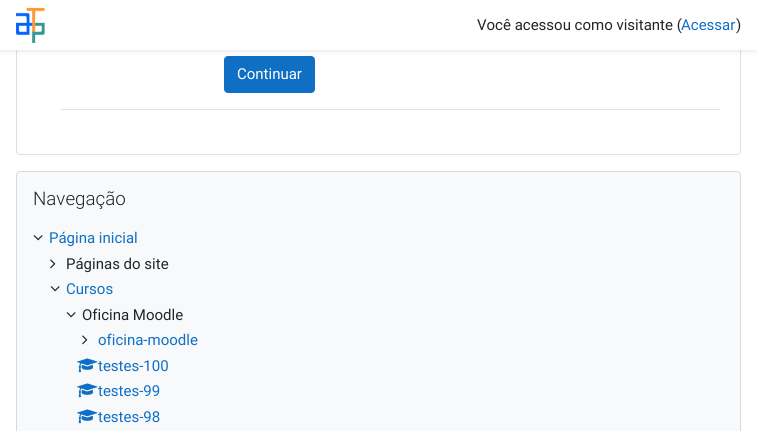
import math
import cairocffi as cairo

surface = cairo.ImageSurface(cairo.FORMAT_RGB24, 757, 431)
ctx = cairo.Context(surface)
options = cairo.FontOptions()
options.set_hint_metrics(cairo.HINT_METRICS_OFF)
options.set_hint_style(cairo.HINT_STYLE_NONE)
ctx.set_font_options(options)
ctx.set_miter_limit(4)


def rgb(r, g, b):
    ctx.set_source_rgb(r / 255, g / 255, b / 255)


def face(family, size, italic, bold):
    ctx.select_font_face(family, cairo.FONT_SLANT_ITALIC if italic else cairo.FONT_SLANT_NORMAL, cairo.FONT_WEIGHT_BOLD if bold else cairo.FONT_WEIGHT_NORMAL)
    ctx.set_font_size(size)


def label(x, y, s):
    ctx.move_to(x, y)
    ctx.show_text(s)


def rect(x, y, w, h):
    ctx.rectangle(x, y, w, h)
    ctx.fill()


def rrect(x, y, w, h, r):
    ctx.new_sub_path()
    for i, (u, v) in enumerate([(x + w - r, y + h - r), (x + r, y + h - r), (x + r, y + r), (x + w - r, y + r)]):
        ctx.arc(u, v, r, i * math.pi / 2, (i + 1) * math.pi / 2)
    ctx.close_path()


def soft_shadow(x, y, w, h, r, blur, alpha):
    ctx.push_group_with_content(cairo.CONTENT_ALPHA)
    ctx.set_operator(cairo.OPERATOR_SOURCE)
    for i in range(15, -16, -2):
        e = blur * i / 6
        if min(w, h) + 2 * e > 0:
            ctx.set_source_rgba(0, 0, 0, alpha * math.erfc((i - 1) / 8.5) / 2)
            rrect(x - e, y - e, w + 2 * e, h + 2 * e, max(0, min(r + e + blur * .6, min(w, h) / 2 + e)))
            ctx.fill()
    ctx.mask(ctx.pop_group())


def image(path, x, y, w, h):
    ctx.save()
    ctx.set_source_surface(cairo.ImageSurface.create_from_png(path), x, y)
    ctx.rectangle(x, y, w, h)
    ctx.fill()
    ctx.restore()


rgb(255, 255, 255)
ctx.paint()
rrect(16.5, -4.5, 724, 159, 3.5)
rgb(223, 223, 223)
ctx.set_line_width(1)
ctx.stroke()
rgb(15, 111, 197)
rrect(224.5, 56.5, 90, 36, 3.5)
ctx.fill_preserve()
ctx.stroke()
rgb(0, 0, 0)
soft_shadow(0, 2, 757, 50, 0, 2, 0.08)
rgb(255, 255, 255)
rect(0, 0, 757, 50)
image('image0.png', 16, 7, 29, 36)
face('Roboto', 15, 0, 0)
rgb(33, 37, 41)
label(477, 30, 'Você acessou como visitante (')
rgb(15, 111, 197)
label(681, 30, 'Acessar')
rgb(33, 37, 41)
label(736, 30, ')')
rgb(222, 226, 230)
rect(61, 109, 659, 1)
rgb(255, 255, 255)
label(237, 79, 'Continuar')
rgb(248, 249, 250)
rrect(16.5, 171.5, 724, 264, 3.5)
ctx.fill_preserve()
rgb(217, 218, 219)
ctx.stroke()
face('Roboto Light', 18.75, 0, 0)
rgb(33, 37, 41)
label(33, 205, 'Navegação')
image('image1.png', 33, 235, 10, 6)
face('Roboto', 15, 0, 0)
rgb(15, 111, 197)
label(49, 243, 'Página inicial')
image('image2.png', 50, 259, 6, 10)
rgb(33, 37, 41)
label(66, 269, 'Páginas do site')
image('image1.png', 50, 286, 10, 6)
rgb(15, 111, 197)
label(66, 294, 'Cursos')
image('image1.png', 66, 312, 10, 6)
rgb(33, 37, 41)
label(82, 320, 'Oficina Moodle')
image('image2.png', 82, 335, 6, 10)
rgb(15, 111, 197)
label(98, 345, 'oficina-moodle')
image('image3.png', 77, 358, 21, 15)
label(98, 371, 'testes-100')
image('image3.png', 77, 383, 21, 15)
label(98, 396, 'testes-99')
image('image3.png', 77, 409, 21, 15)
label(98, 422, 'testes-98')
surface.write_to_png('render.png')
